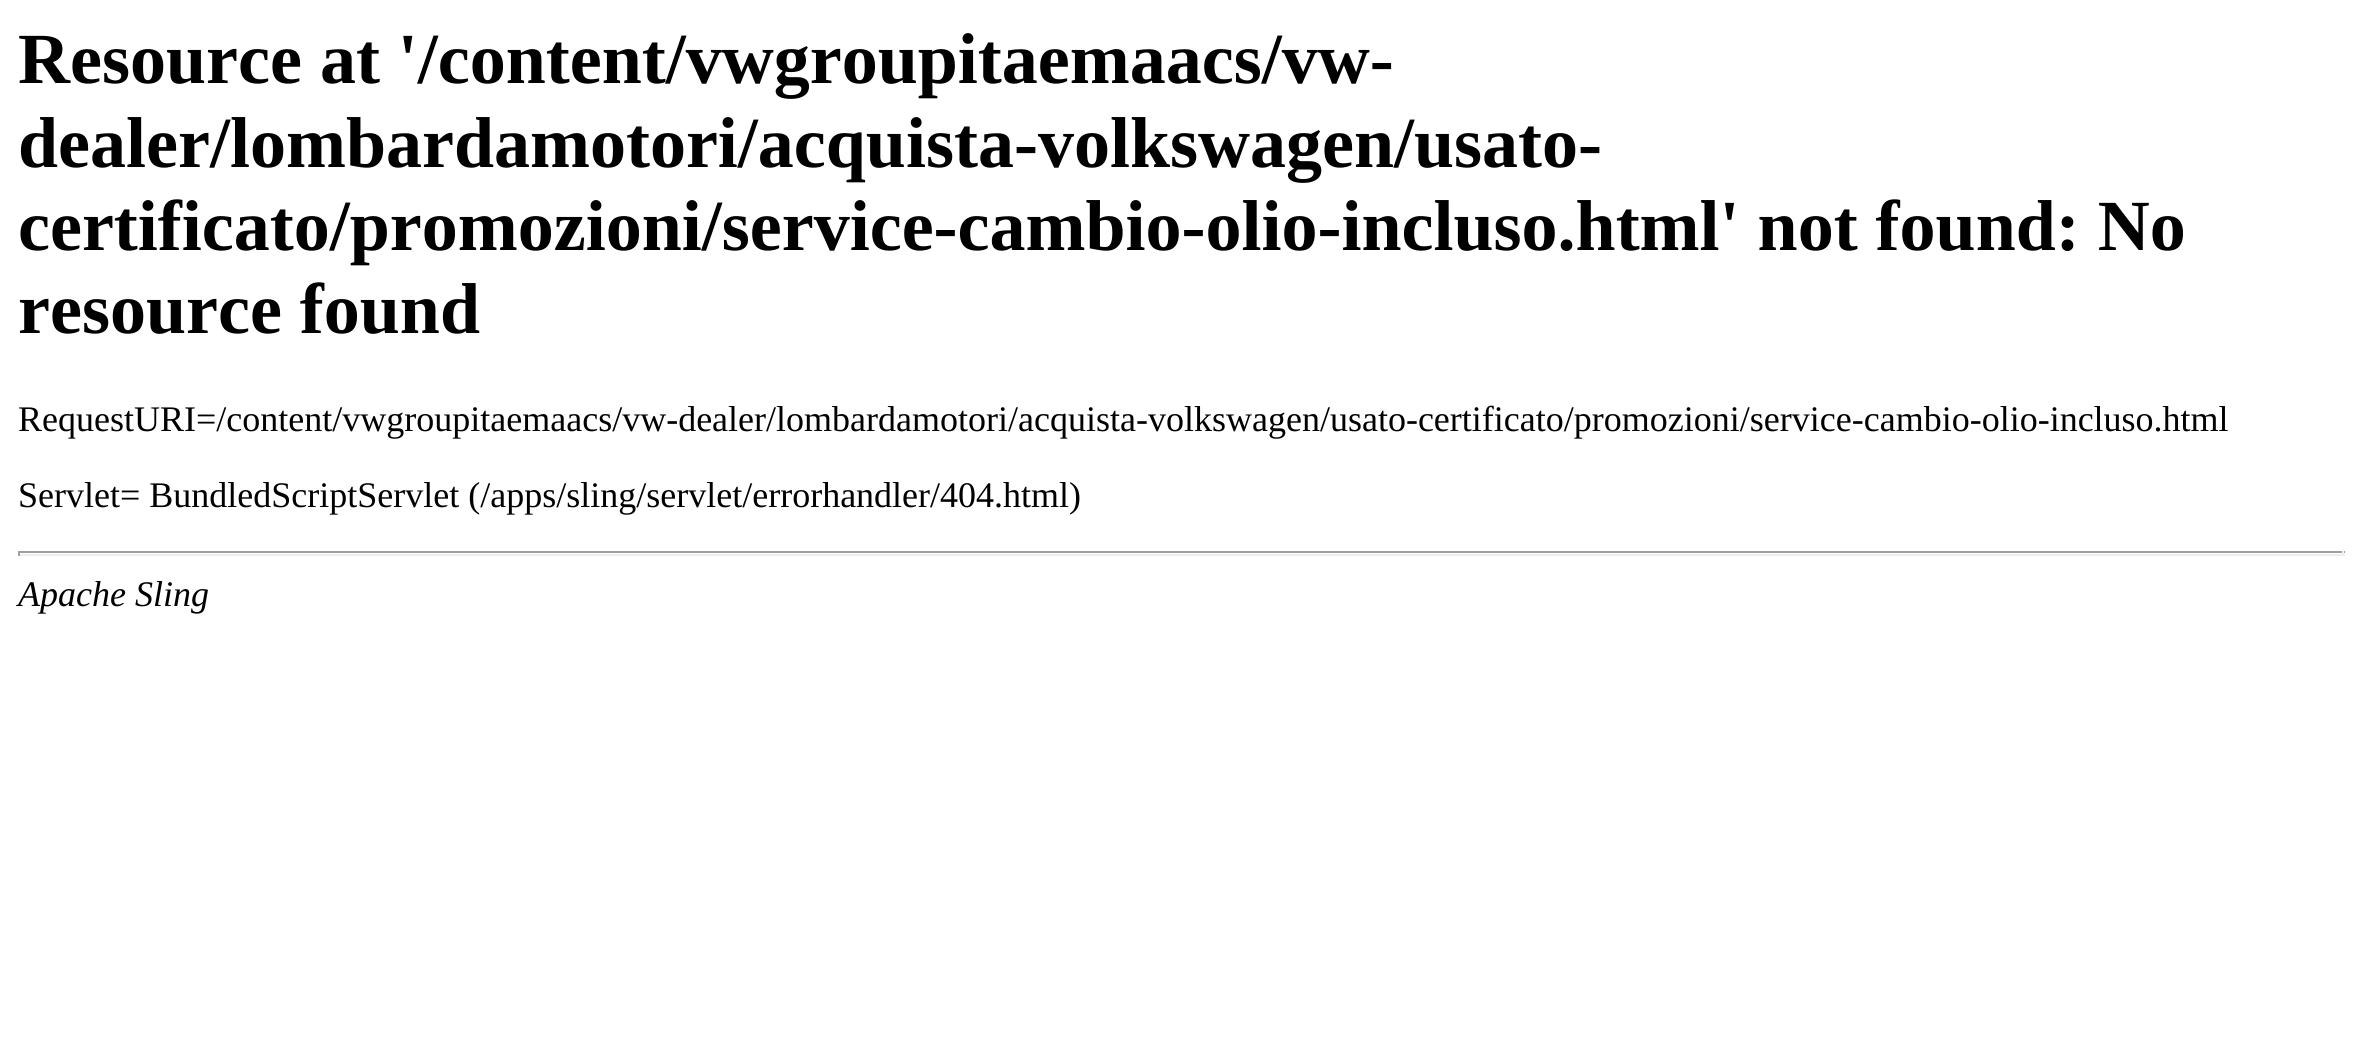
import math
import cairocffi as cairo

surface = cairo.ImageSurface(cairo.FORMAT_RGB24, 2362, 1062)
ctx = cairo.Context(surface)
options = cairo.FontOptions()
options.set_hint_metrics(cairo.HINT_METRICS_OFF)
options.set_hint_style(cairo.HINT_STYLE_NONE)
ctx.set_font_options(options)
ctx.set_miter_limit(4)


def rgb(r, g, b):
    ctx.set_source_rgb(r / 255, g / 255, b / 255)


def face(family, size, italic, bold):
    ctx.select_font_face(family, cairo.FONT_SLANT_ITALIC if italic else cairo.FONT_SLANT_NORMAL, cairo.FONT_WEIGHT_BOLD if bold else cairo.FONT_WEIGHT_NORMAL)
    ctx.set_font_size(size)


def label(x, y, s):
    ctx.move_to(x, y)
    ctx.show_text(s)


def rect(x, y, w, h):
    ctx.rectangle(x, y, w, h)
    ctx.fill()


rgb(255, 255, 255)
ctx.paint()
face('Liberation Serif', 72, 0, 1)
rgb(0, 0, 0)
label(18, 83, 'Resource at \'/content/vwgroupitaemaacs/vw-')
label(18, 167, 'dealer/lombardamotori/acquista-volkswagen/usato-')
label(18, 250, 'certificato/promozioni/service-cambio-olio-incluso.html\' not found: No')
label(18, 333, 'resource found')
face('Liberation Serif', 36, 0, 0)
label(18, 431, 'RequestURI=/content/vwgroupitaemaacs/vw-dealer/lombardamotori/acquista-volkswagen/usato-certificato/promozioni/service-cambio-olio-incluso.html')
label(18, 507, 'Servlet= BundledScriptServlet (/apps/sling/servlet/errorhandler/404.html)')
rgb(159, 159, 159)
rect(18, 551, 2327, 2)
rgb(238, 238, 238)
rect(2342, 551, 2, 5)
rect(18, 554, 2327, 2)
rgb(159, 159, 159)
rect(18, 551, 2, 5)
face('Liberation Serif', 36, 1, 0)
rgb(0, 0, 0)
label(18, 606, 'Apache Sling')
surface.write_to_png('render.png')
